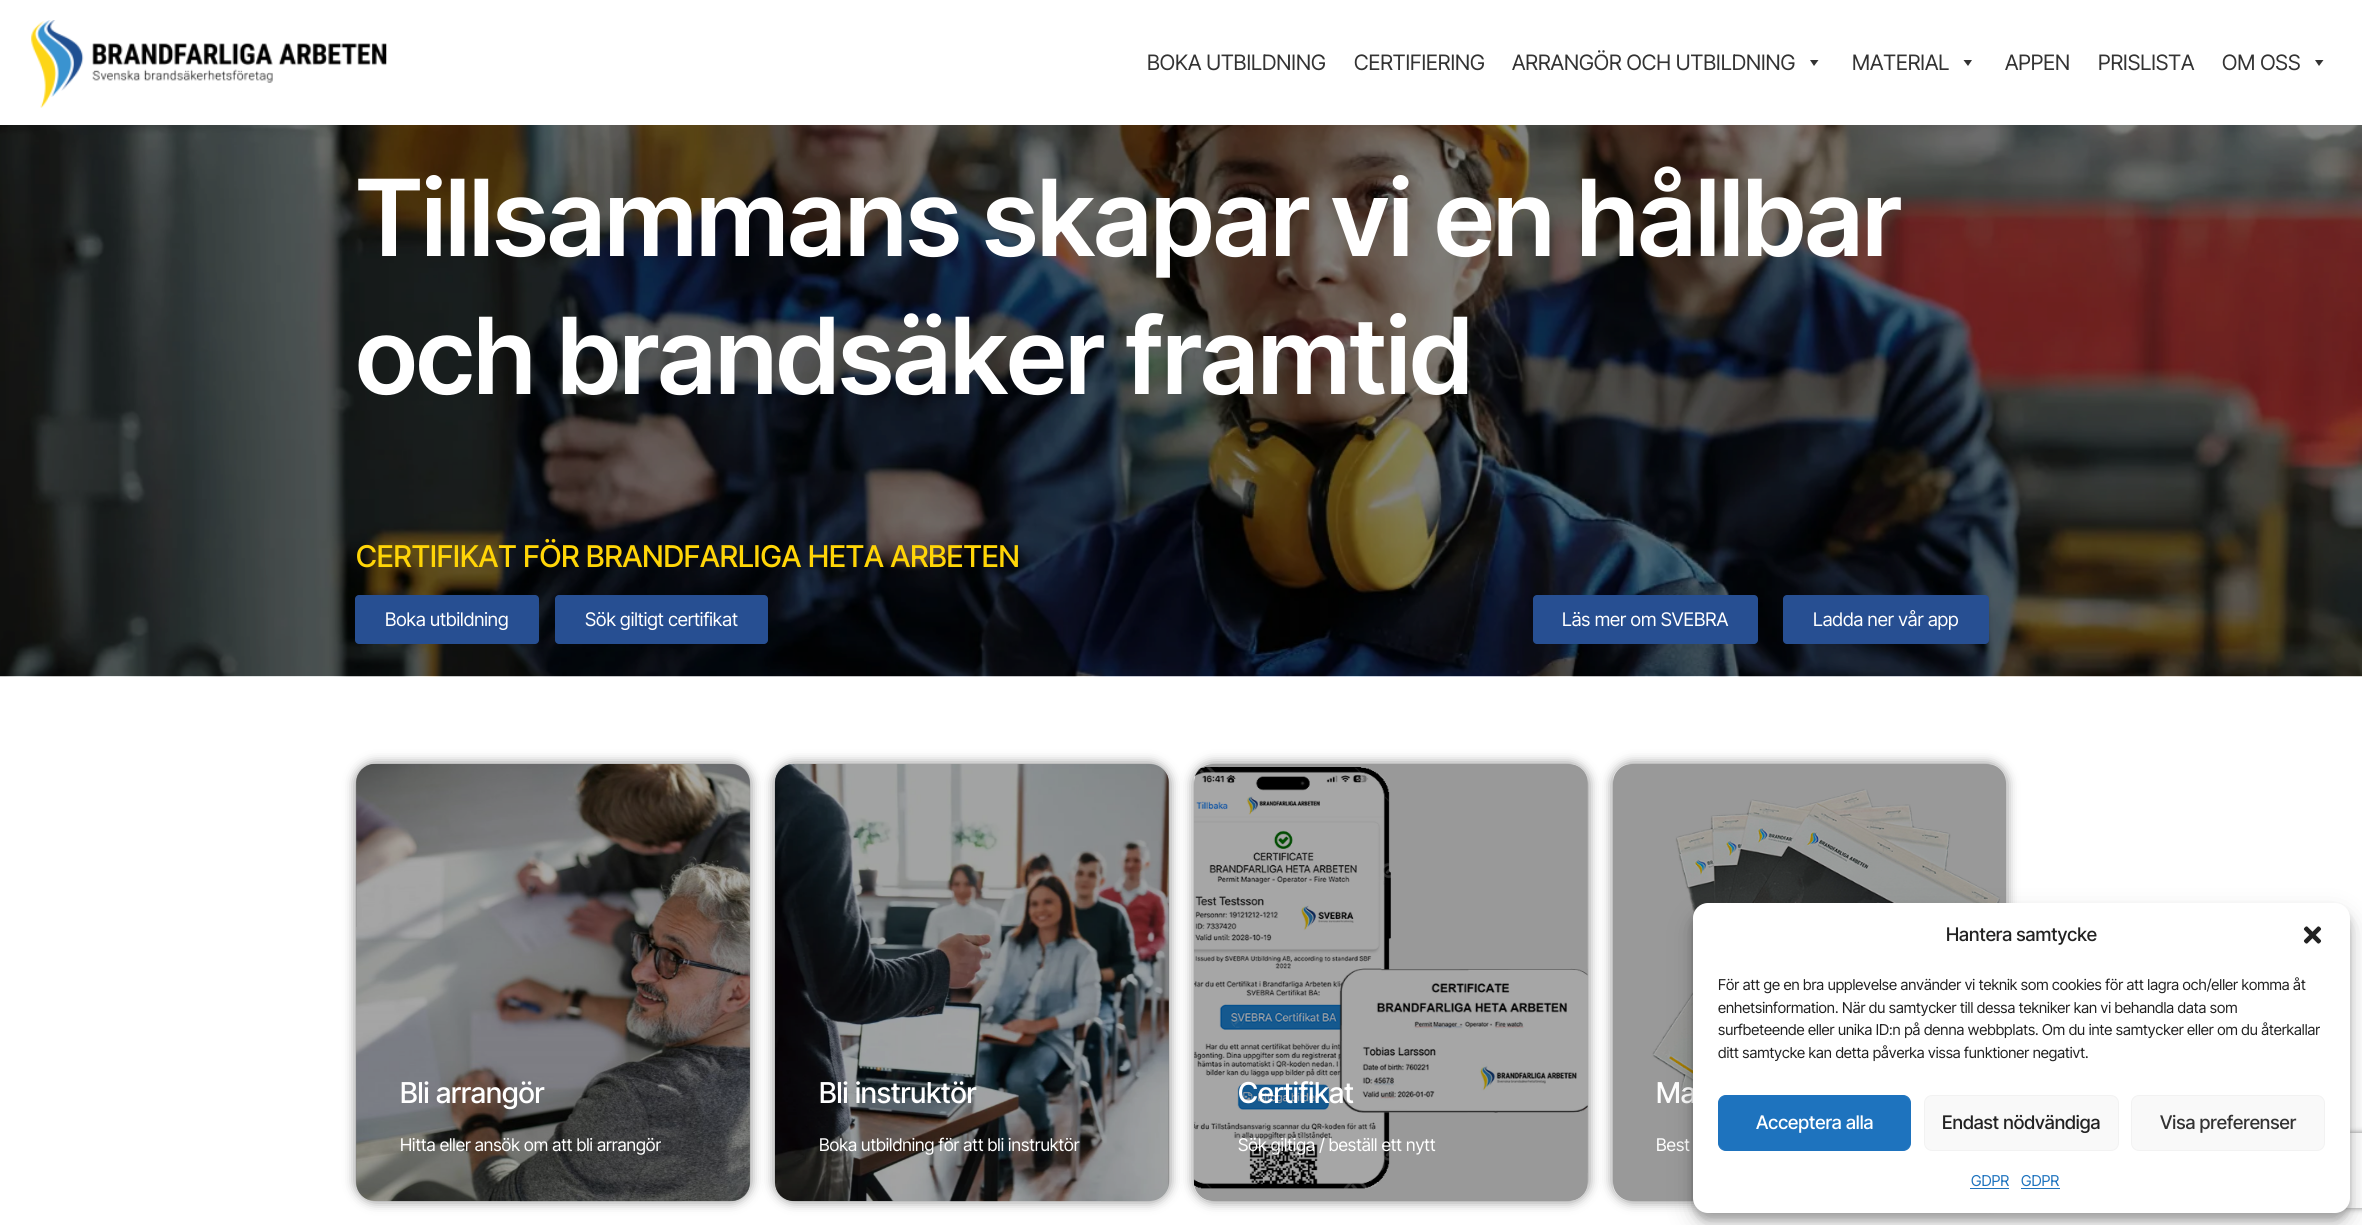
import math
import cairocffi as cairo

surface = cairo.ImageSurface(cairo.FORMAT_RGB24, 2362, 1225)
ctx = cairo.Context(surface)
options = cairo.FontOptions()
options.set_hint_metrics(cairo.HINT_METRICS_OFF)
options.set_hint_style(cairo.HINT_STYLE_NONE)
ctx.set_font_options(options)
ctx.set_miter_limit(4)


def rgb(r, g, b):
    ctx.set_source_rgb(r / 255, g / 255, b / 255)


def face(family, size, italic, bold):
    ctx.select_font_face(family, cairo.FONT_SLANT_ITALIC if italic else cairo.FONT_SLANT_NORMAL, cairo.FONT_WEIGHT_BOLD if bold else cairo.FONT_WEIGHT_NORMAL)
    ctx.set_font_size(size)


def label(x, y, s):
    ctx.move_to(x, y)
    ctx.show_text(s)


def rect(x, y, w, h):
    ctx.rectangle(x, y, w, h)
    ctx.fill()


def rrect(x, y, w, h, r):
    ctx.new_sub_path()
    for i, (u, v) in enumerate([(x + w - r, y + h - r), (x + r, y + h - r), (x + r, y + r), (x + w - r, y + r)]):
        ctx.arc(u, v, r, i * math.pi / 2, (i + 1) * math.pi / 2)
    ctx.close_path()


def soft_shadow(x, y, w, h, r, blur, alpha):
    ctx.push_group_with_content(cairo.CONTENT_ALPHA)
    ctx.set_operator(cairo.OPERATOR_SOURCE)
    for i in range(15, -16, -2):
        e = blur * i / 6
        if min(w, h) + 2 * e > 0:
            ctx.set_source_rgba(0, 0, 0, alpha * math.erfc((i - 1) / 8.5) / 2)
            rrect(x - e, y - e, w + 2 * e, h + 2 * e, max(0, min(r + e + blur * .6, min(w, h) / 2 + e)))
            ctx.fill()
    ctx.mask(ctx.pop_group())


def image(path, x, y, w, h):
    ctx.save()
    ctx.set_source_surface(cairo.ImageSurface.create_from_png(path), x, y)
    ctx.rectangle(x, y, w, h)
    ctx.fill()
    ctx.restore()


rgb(255, 255, 255)
ctx.paint()
image('image0.png', 31, 20, 356, 88)
face('Inter Tight', 21.25, 0, 0)
rgb(51, 51, 51)
label(1147, 70, 'BOKA UTBILDNING')
label(1354, 70, 'CERTIFIERING')
label(1512, 70, 'ARRANGÖR OCH UTBILDNING')
ctx.new_path()
ctx.move_to(1818.5, 60)
ctx.line_to(1814, 66)
ctx.line_to(1810, 60)
ctx.close_path()
ctx.fill()
label(1852, 70, 'MATERIAL')
ctx.new_path()
ctx.move_to(1972, 60)
ctx.line_to(1968, 66)
ctx.line_to(1963.5, 60)
ctx.close_path()
ctx.fill()
label(2005, 70, 'APPEN')
label(2098, 70, 'PRISLISTA')
label(2222, 70, 'OM OSS')
ctx.new_path()
ctx.move_to(2323.5, 60)
ctx.line_to(2319, 66)
ctx.line_to(2315, 60)
ctx.close_path()
ctx.fill()
image('image1.png', 0, 125, 2362, 552)
face('Inter Tight SemiBold', 106.25, 0, 0)
rgb(255, 255, 255)
label(356, 256, 'Tillsammans skapar vi en hållbar')
label(356, 394, 'och brandsäker framtid')
face('Inter Tight Medium', 30, 0, 0)
rgb(255, 213, 7)
label(356, 567, 'CERTIFIKAT FÖR BRANDFARLIGA HETA ARBETEN')
rgb(39, 79, 146)
rrect(355, 595, 184, 49, 4)
ctx.fill()
face('Inter Tight', 18.75, 0, 0)
rgb(255, 255, 255)
label(385, 626, 'Boka utbildning')
rgb(39, 79, 146)
rrect(555, 595, 213, 49, 4)
ctx.fill()
rgb(255, 255, 255)
label(585, 626, 'Sök giltigt certifikat')
rgb(39, 79, 146)
rrect(1533, 595, 225, 49, 4)
ctx.fill()
rgb(255, 255, 255)
label(1562, 626, 'Läs mer om SVEBRA')
rgb(39, 79, 146)
rrect(1783, 595, 206, 49, 4)
ctx.fill()
rgb(255, 255, 255)
label(1813, 626, 'Ladda ner vår app')
rgb(0, 0, 0)
soft_shadow(356, 764, 394, 437, 19, 6, 0.5)
image('image2.png', 356, 764, 394, 438)
ctx.set_source_rgba(0, 0, 0, 0.35)
rrect(356, 764, 394, 437, 19)
ctx.fill()
face('Inter Tight Medium', 28.75, 0, 0)
rgb(255, 255, 255)
label(400, 1103, 'Bli arrangör')
face('Inter Tight', 17.5, 0, 0)
label(400, 1151, 'Hitta eller ansök om att bli arrangör')
rgb(0, 0, 0)
soft_shadow(775, 764, 394, 437, 19, 6, 0.5)
image('image3.png', 775, 764, 394, 438)
ctx.set_source_rgba(0, 0, 0, 0.35)
rrect(775, 764, 394, 437, 19)
ctx.fill()
face('Inter Tight Medium', 28.75, 0, 0)
rgb(255, 255, 255)
label(819, 1103, 'Bli instruktör')
face('Inter Tight', 17.5, 0, 0)
label(819, 1151, 'Boka utbildning för att bli instruktör')
ctx.save()
ctx.set_fill_rule(cairo.FILL_RULE_EVEN_ODD)
ctx.new_path()
ctx.move_to(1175, 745)
ctx.line_to(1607, 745)
ctx.line_to(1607, 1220)
ctx.line_to(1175, 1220)
ctx.close_path()
ctx.move_to(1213, 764)
ctx.line_to(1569, 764)
ctx.curve_to(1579.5, 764, 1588, 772.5, 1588, 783)
ctx.line_to(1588, 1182)
ctx.curve_to(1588, 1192.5, 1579.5, 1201, 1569, 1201)
ctx.line_to(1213, 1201)
ctx.curve_to(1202.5, 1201, 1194, 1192.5, 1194, 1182)
ctx.line_to(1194, 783)
ctx.curve_to(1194, 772.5, 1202.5, 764, 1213, 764)
ctx.close_path()
ctx.clip()
rgb(0, 0, 0)
soft_shadow(1194, 764, 394, 437, 19, 6, 0.5)
ctx.restore()
image('image4.png', 1194, 764, 394, 437)
ctx.set_source_rgba(0, 0, 0, 0.35)
rrect(1194, 764, 394, 437, 19)
ctx.fill()
face('Inter Tight Medium', 28.75, 0, 0)
rgb(255, 255, 255)
label(1238, 1103, 'Certifikat')
face('Inter Tight', 17.5, 0, 0)
label(1238, 1151, 'Sök giltiga / beställ ett nytt')
rgb(0, 0, 0)
soft_shadow(1613, 764, 393, 437, 19, 6, 0.5)
image('image5.png', 1613, 764, 394, 437)
ctx.set_source_rgba(0, 0, 0, 0.35)
rrect(1613, 764, 393, 437, 19)
ctx.fill()
face('Inter Tight Medium', 28.75, 0, 0)
rgb(255, 255, 255)
label(1656, 1103, 'Ma')
face('Inter Tight', 17.5, 0, 0)
label(1656, 1151, 'Best')
rgb(0, 0, 0)
soft_shadow(1693, 910, 657, 310, 15, 4, 0.23)
soft_shadow(1693, 915, 657, 310, 15, 12.5, 0.19)
ctx.save()
ctx.set_fill_rule(cairo.FILL_RULE_EVEN_ODD)
ctx.new_path()
ctx.move_to(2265, 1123)
ctx.line_to(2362, 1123)
ctx.line_to(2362, 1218)
ctx.line_to(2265, 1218)
ctx.close_path()
ctx.move_to(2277.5, 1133)
ctx.line_to(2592.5, 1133)
ctx.curve_to(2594, 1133, 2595, 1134, 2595, 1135.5)
ctx.line_to(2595, 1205.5)
ctx.curve_to(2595, 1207, 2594, 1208, 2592.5, 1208)
ctx.line_to(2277.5, 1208)
ctx.curve_to(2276, 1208, 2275, 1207, 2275, 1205.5)
ctx.line_to(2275, 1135.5)
ctx.curve_to(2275, 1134, 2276, 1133, 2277.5, 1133)
ctx.close_path()
ctx.clip()
rgb(128, 128, 128)
soft_shadow(2275, 1133, 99, 75, 2.5, 3, 1)
ctx.restore()
rgb(255, 255, 255)
rrect(1693, 903, 657, 310, 15)
ctx.fill()
face('Inter Tight Medium', 18.75, 0, 0)
rgb(34, 34, 34)
label(1946, 941, 'Hantera samtycke')
image('image6.png', 2303, 926, 19, 18)
face('Inter Tight', 15, 0, 0)
label(1718, 990, 'För att ge en bra upplevelse använder vi teknik som cookies för att lagra och/eller komma åt')
label(1718, 1013, 'enhetsinformation. När du samtycker till dessa tekniker kan vi behandla data som')
label(1718, 1035, 'surfbeteende eller unika ID:n på denna webbplats. Om du inte samtycker eller om du återkallar')
label(1718, 1058, 'ditt samtycke kan detta påverka vissa funktioner negativt.')
rgb(30, 115, 190)
rrect(1718.5, 1095.5, 192, 55, 7.5)
ctx.fill_preserve()
ctx.set_line_width(1)
ctx.stroke()
face('Inter Tight Medium', 18.75, 0, 0)
rgb(255, 255, 255)
label(1756, 1129, 'Acceptera alla')
rgb(249, 249, 249)
rrect(1924.5, 1095.5, 194, 55, 7.5)
ctx.fill_preserve()
rgb(242, 242, 242)
ctx.stroke()
rgb(34, 34, 34)
label(1942, 1129, 'Endast nödvändiga')
rgb(249, 249, 249)
rrect(2131.5, 1095.5, 193, 55, 7.5)
ctx.fill_preserve()
rgb(242, 242, 242)
ctx.stroke()
rgb(51, 51, 51)
label(2160, 1129, 'Visa preferenser')
face('Inter Tight', 15, 0, 0)
rgb(30, 115, 190)
label(1971, 1186, 'GDPR')
rect(1970, 1188, 39, 1)
label(2021, 1186, 'GDPR')
rect(2021, 1188, 39, 1)
surface.write_to_png('render.png')
